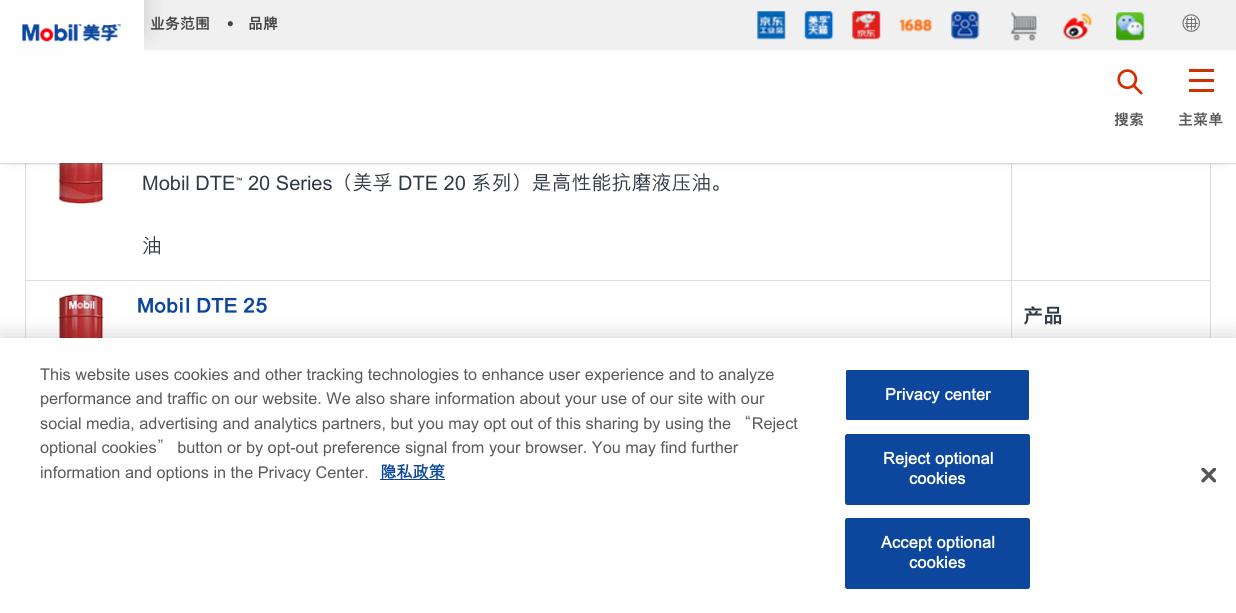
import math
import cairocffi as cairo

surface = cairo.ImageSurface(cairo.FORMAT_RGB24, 1236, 613)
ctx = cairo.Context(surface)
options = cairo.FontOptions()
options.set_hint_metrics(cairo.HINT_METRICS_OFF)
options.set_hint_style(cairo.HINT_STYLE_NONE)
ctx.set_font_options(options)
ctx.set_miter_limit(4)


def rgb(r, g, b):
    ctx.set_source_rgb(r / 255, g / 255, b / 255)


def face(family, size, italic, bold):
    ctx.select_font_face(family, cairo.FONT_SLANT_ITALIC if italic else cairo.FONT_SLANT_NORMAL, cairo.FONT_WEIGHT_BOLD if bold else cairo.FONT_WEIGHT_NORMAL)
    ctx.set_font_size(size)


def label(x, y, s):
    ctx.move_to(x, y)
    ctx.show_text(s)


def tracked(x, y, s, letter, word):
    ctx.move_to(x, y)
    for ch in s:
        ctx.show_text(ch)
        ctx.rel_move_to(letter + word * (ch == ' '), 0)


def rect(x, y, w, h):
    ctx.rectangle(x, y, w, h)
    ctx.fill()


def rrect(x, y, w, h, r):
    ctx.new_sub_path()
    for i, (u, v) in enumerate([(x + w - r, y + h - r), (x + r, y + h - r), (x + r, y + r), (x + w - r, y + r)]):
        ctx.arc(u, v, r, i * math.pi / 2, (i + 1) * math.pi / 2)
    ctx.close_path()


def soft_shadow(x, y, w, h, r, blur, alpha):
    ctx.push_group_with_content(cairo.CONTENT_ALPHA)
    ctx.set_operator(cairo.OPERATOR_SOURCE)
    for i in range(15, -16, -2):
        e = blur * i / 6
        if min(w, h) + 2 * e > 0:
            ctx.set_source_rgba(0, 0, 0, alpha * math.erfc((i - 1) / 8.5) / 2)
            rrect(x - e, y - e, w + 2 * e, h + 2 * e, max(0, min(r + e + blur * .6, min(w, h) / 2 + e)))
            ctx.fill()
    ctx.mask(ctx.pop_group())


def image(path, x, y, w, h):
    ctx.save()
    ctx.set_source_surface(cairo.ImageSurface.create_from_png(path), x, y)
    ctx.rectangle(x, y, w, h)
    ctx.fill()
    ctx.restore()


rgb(255, 255, 255)
ctx.paint()
ctx.rectangle(25.5, 116.5, 1185, 164)
rgb(221, 221, 221)
ctx.set_line_width(1)
ctx.stroke()
image('image11.png', 58, 163, 46, 41)
rect(1011, 163, 1, 117)
rgb(196, 196, 196)
soft_shadow(11, 16, 1214, 140, 0, 7.5, 1)
rgb(17, 17, 17)
soft_shadow(0, 1, 1236, 163, 0, 0.5, 0.15)
rgb(240, 240, 240)
rect(144, 0, 1092, 50)
rgb(255, 255, 255)
rect(0, 50, 1236, 113)
rgb(204, 204, 204)
soft_shadow(-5, -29, 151, 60, 0, 11, 1)
rgb(255, 255, 255)
rect(0, 0, 144, 50)
image('image0.png', 22, 24, 99, 18)
face('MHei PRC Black', 15, 0, 0)
rgb(69, 69, 69)
label(150, 29, '业务范围')
face('Liberation Sans', 19, 0, 0)
label(227, 30, '•')
face('MHei PRC Black', 15, 0, 0)
label(248, 29, '品牌')
image('image1.png', 757, 11, 29, 29)
image('image2.png', 804, 11, 30, 29)
image('image3.png', 852, 11, 29, 29)
image('image4.png', 899, 18, 33, 14)
image('image5.png', 951, 11, 29, 29)
image('image6.png', 1011, 12, 26, 29)
image('image7.png', 1063, 13, 29, 27)
image('image8.png', 1116, 12, 29, 29)
image('image9.png', 1182, 14, 18, 18)
image('image10.png', 1117, 69, 26, 26)
rgb(90, 90, 90)
label(1114, 125, '搜索')
rgb(207, 49, 1)
rect(1189, 79, 25, 3)
rect(1189, 69, 25, 3)
rect(1189, 89, 25, 3)
rgb(90, 90, 90)
label(1178, 125, '主菜单')
face('MHei PRC Medium', 20, 0, 0)
rgb(49, 58, 69)
label(142, 190, 'Mobil DTE')
face('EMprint', 20, 0, 0)
label(236, 190, '™')
face('MHei PRC Medium', 20, 0, 0)
label(248, 190, '20 Series（美孚 DTE 20 系列）是高性能抗磨液压油。')
label(142, 253, '油')
rgb(221, 221, 221)
rect(1210, 281, 1, 57)
rect(25, 281, 1, 57)
image('image12.png', 58, 293, 46, 45)
face('MHei PRC Black', 20, 0, 0)
rgb(12, 71, 157)
label(137, 313, 'Mobil DTE 25')
rgb(221, 221, 221)
rect(1011, 281, 1, 57)
rgb(49, 58, 69)
label(1023, 323, '产品')
rgb(0, 0, 0)
soft_shadow(0, 338, 1236, 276, 0, 11, 0.2)
rgb(255, 255, 255)
rect(0, 338, 1236, 275)
face('MHei PRC Medium', 16.25, 0, 0)
rgb(90, 90, 90)
label(40, 380, 'This website uses cookies and other tracking technologies to enhance user experience and to analyze')
label(40, 404, 'performance and traffic on our website. We also share information about your use of our site with our')
label(40, 429, 'social media, advertising and analytics partners, but you may opt out of this sharing by using the “Reject')
label(40, 453, 'optional cookies” button or by opt-out preference signal from your browser. You may find further')
label(40, 478, 'information and options in the Privacy Center.')
rgb(12, 71, 157)
rect(380, 479, 65, 1)
face('MHei PRC', 16.25, 0, 1)
label(380, 478, '隐私政策')
rrect(845.5, 369.5, 184, 51, 2)
ctx.fill_preserve()
rgb(255, 255, 255)
ctx.stroke()
tracked(885, 400, 'Privacy center', 0.2, 0)
rgb(12, 71, 157)
rrect(845.5, 434.5, 184, 70, 2)
ctx.fill_preserve()
ctx.stroke()
rgb(255, 255, 255)
tracked(883, 464, 'Reject optional', 0.2, 0)
tracked(909, 484, 'cookies', 0.2, 0)
rgb(12, 71, 157)
rrect(845.5, 518.5, 184, 70, 2)
ctx.fill_preserve()
ctx.stroke()
rgb(255, 255, 255)
tracked(881, 548, 'Accept optional', 0.2, 0)
tracked(909, 568, 'cookies', 0.2, 0)
image('image13.png', 1201, 468, 15, 15)
surface.write_to_png('render.png')
